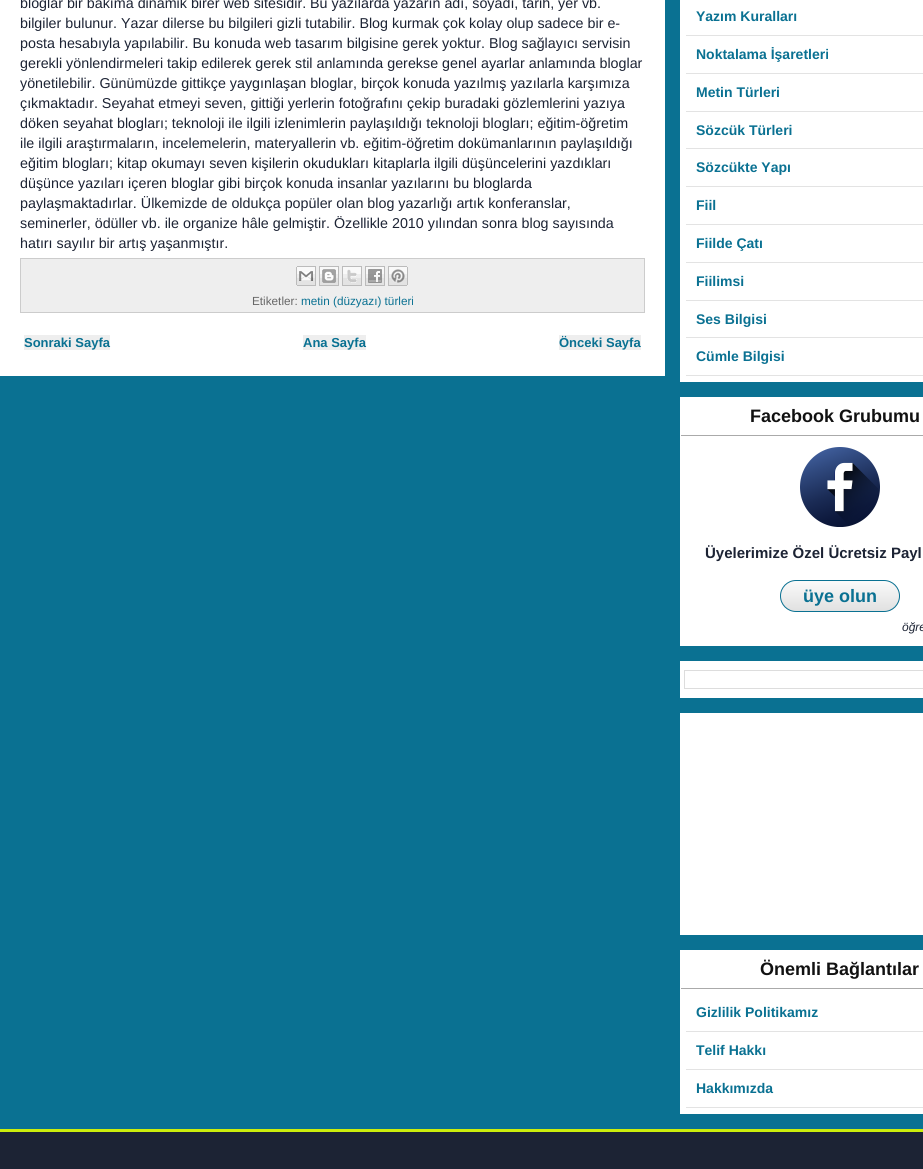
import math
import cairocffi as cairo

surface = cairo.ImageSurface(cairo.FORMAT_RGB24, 923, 1169)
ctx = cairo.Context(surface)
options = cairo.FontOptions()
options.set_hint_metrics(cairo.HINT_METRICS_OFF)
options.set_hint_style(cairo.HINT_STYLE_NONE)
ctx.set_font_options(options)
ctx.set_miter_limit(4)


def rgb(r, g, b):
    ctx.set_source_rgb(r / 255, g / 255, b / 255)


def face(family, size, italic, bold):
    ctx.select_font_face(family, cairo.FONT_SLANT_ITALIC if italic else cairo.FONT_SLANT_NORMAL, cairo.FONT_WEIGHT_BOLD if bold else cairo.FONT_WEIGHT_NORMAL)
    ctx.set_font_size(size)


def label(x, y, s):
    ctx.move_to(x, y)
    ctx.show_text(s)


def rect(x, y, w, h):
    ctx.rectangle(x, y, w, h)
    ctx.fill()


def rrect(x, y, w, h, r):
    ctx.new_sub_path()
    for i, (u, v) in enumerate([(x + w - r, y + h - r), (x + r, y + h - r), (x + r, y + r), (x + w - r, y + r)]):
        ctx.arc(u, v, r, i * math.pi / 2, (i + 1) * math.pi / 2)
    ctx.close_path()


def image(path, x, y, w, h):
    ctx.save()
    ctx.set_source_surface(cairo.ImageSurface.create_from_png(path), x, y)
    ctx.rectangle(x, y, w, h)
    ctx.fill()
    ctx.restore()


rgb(10, 113, 146)
ctx.paint()
rgb(255, 255, 255)
rect(0, 0, 665, 376)
face('Liberation Sans', 14.3, 0, 0)
rgb(28, 35, 52)
label(20, 8, 'bloglar bir bakıma dinamik birer web sitesidir. Bu yazılarda yazarın adı, soyadı, tarih, yer vb.')
label(20, 28, 'bilgiler bulunur. Yazar dilerse bu bilgileri gizli tutabilir. Blog kurmak çok kolay olup sadece bir e-')
label(20, 48, 'posta hesabıyla yapılabilir. Bu konuda web tasarım bilgisine gerek yoktur. Blog sağlayıcı servisin')
label(20, 68, 'gerekli yönlendirmeleri takip edilerek gerek stil anlamında gerekse genel ayarlar anlamında bloglar')
label(20, 88, 'yönetilebilir. Günümüzde gittikçe yaygınlaşan bloglar, birçok konuda yazılmış yazılarla karşımıza')
label(20, 108, 'çıkmaktadır. Seyahat etmeyi seven, gittiği yerlerin fotoğrafını çekip buradaki gözlemlerini yazıya')
label(20, 128, 'döken seyahat blogları; teknoloji ile ilgili izlenimlerin paylaşıldığı teknoloji blogları; eğitim-öğretim')
label(20, 148, 'ile ilgili araştırmaların, incelemelerin, materyallerin vb. eğitim-öğretim dokümanlarının paylaşıldığı')
label(20, 168, 'eğitim blogları; kitap okumayı seven kişilerin okudukları kitaplarla ilgili düşüncelerini yazdıkları')
label(20, 188, 'düşünce yazıları içeren bloglar gibi birçok konuda insanlar yazılarını bu bloglarda')
label(20, 208, 'paylaşmaktadırlar. Ülkemizde de oldukça popüler olan blog yazarlığı artık konferanslar,')
label(20, 228, 'seminerler, ödüller vb. ile organize hâle gelmiştir. Özellikle 2010 yılından sonra blog sayısında')
label(20, 248, 'hatırı sayılır bir artış yaşanmıştır.')
rgb(238, 238, 238)
ctx.rectangle(20.5, 258.5, 624, 54)
ctx.fill_preserve()
rgb(204, 204, 204)
ctx.set_line_width(1)
ctx.stroke()
image('image0.png', 296, 266, 20, 20)
image('image1.png', 319, 266, 20, 20)
image('image2.png', 342, 266, 20, 20)
image('image3.png', 365, 266, 20, 20)
image('image4.png', 388, 266, 20, 20)
face('Liberation Sans', 11.75, 0, 0)
rgb(102, 102, 102)
label(252, 305, 'Etiketler:')
rgb(10, 113, 146)
label(301, 305, 'metin (düzyazı) türleri')
rgb(238, 238, 238)
rect(24, 335, 86, 15)
face('Liberation Sans', 13, 0, 1)
rgb(10, 113, 146)
label(24, 347, 'Sonraki Sayfa')
rgb(238, 238, 238)
rect(303, 335, 63, 15)
rgb(10, 113, 146)
label(303, 347, 'Ana Sayfa')
rgb(238, 238, 238)
rect(559, 335, 82, 15)
rgb(10, 113, 146)
label(559, 347, 'Önceki Sayfa')
rgb(255, 255, 255)
rect(680, 0, 243, 382)
rgb(227, 227, 227)
rect(686, 35, 237, 1)
face('Liberation Sans', 14, 0, 1)
rgb(10, 113, 146)
label(696, 21, 'Yazım Kuralları')
rgb(227, 227, 227)
rect(686, 73, 237, 1)
rgb(10, 113, 146)
label(696, 59, 'Noktalama İşaretleri')
rgb(227, 227, 227)
rect(686, 111, 237, 1)
rgb(10, 113, 146)
label(696, 97, 'Metin Türleri')
rgb(227, 227, 227)
rect(686, 148, 237, 1)
rgb(10, 113, 146)
label(696, 135, 'Sözcük Türleri')
rgb(227, 227, 227)
rect(686, 186, 237, 1)
rgb(10, 113, 146)
label(696, 172, 'Sözcükte Yapı')
rgb(227, 227, 227)
rect(686, 224, 237, 1)
rgb(10, 113, 146)
label(696, 210, 'Fiil')
rgb(227, 227, 227)
rect(686, 262, 237, 1)
rgb(10, 113, 146)
label(696, 248, 'Fiilde Çatı')
rgb(227, 227, 227)
rect(686, 300, 237, 1)
rgb(10, 113, 146)
label(696, 286, 'Fiilimsi')
rgb(227, 227, 227)
rect(686, 337, 237, 1)
rgb(10, 113, 146)
label(696, 324, 'Ses Bilgisi')
rgb(227, 227, 227)
rect(686, 375, 237, 1)
rgb(10, 113, 146)
label(696, 361, 'Cümle Bilgisi')
rgb(255, 255, 255)
rect(680, 397, 243, 249)
rgb(170, 170, 170)
rect(681, 435, 242, 1)
face('Liberation Sans', 18, 0, 1)
rgb(17, 17, 17)
label(750, 422, 'Facebook Grubumu')
image('image5.png', 800, 447, 80, 80)
face('Liberation Sans', 15, 0, 1)
rgb(28, 35, 52)
label(705, 558, 'Üyelerimize Özel Ücretsiz Payl')
ctx.save()
rrect(780, 580, 120, 32, 16)
ctx.clip()
gradient = cairo.LinearGradient(840, 581, 840, 611)
gradient.add_color_stop_rgba(0, 0.98, 0.98, 0.98, 1)
gradient.add_color_stop_rgba(1, 0.882, 0.882, 0.882, 1)
ctx.set_source(gradient)
rect(780, 581, 120, 30)
ctx.restore()
rrect(780.5, 580.5, 119, 31, 15.5)
rgb(10, 113, 146)
ctx.stroke()
face('Liberation Sans', 18, 0, 1)
label(803, 602, 'üye olun')
face('Liberation Sans', 12, 1, 0)
rgb(28, 35, 52)
label(902, 631, 'öğre')
rgb(255, 255, 255)
rect(680, 661, 243, 37)
ctx.rectangle(684.5, 670.5, 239, 18)
rgb(221, 221, 221)
ctx.stroke()
rgb(255, 255, 255)
rect(680, 713, 243, 222)
rect(680, 950, 243, 164)
rgb(170, 170, 170)
rect(681, 988, 242, 1)
face('Liberation Sans', 18, 0, 1)
rgb(17, 17, 17)
label(760, 975, 'Önemli Bağlantılar')
rgb(227, 227, 227)
rect(686, 1031, 237, 1)
face('Liberation Sans', 14, 0, 1)
rgb(10, 113, 146)
label(696, 1017, 'Gizlilik Politikamız')
rgb(227, 227, 227)
rect(686, 1069, 237, 1)
rgb(10, 113, 146)
label(696, 1055, 'Telif Hakkı')
rgb(227, 227, 227)
rect(686, 1107, 237, 1)
rgb(10, 113, 146)
label(696, 1093, 'Hakkımızda')
rgb(28, 35, 52)
rect(0, 1132, 923, 37)
rgb(203, 237, 12)
rect(0, 1129, 923, 3)
surface.write_to_png('render.png')
